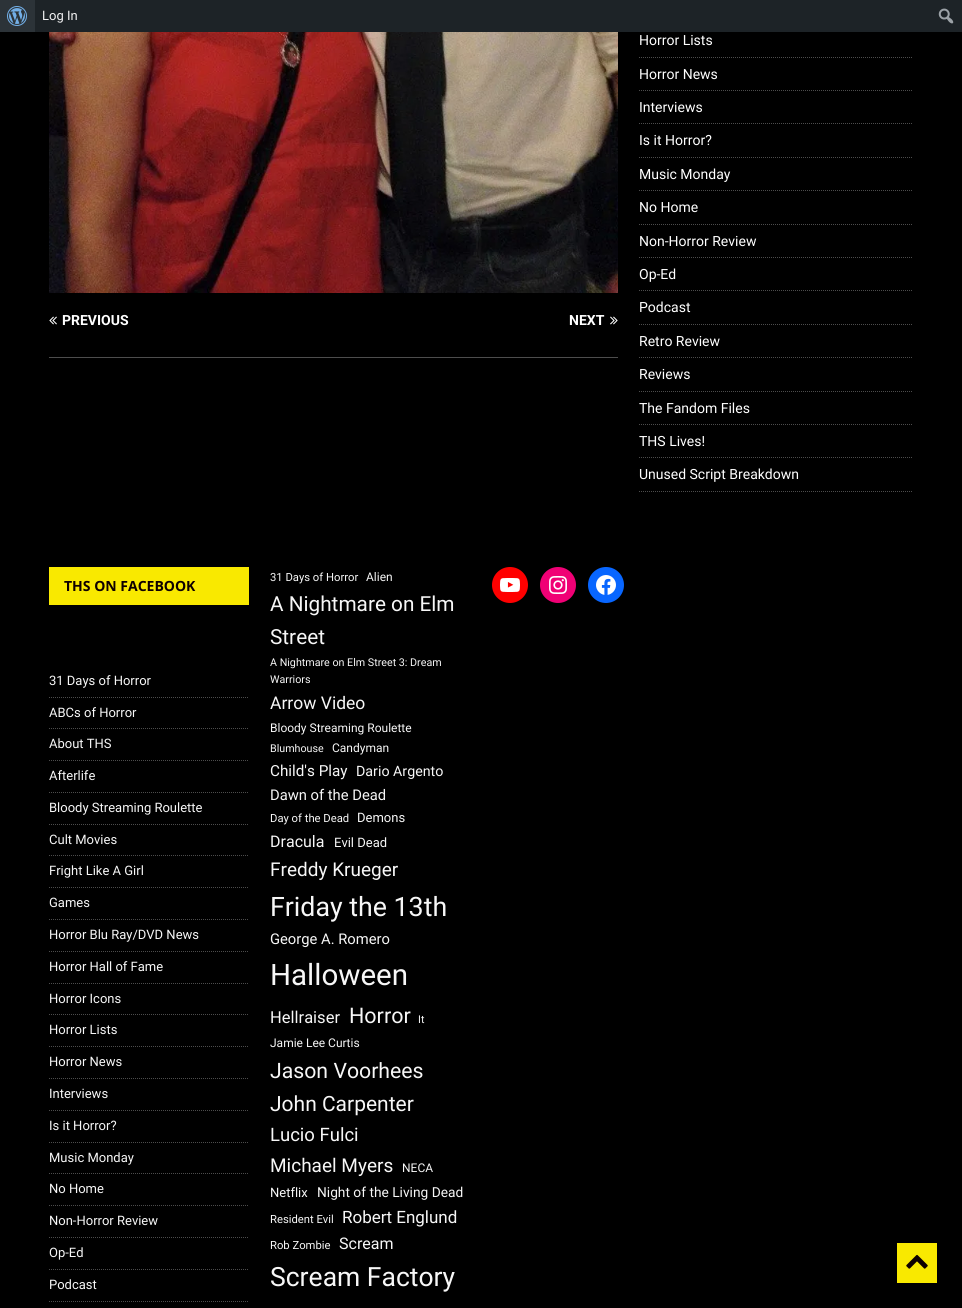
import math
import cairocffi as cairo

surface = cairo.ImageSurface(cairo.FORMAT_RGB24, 962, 1308)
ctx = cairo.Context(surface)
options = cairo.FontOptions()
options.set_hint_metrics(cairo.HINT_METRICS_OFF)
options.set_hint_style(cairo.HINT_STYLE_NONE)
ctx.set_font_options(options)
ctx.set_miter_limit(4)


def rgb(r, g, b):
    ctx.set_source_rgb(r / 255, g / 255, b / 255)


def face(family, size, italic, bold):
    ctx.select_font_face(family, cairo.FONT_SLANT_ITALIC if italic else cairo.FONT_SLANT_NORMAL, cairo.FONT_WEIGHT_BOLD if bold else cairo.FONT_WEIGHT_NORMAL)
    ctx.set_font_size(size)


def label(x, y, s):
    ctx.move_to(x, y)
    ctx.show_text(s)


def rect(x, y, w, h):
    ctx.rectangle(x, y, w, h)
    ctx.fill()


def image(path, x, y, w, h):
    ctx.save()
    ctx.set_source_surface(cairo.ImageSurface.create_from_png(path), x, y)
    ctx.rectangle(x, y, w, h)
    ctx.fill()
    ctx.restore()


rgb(0, 0, 0)
ctx.paint()
rgb(29, 35, 39)
rect(35, 0, 927, 32)
rgb(44, 51, 56)
rect(0, 0, 35, 32)
image('image0.png', 7, 6, 20, 20)
face('Roboto', 13, 0, 0)
rgb(240, 240, 241)
label(42, 20, 'Log In')
image('image1.png', 938, 8, 16, 16)
image('image2.png', 49, 32, 569, 261)
rgb(77, 77, 77)
rect(49, 357, 569, 1)
image('image3.png', 49, 316, 8, 9)
face('Roboto', 14, 0, 1)
rgb(255, 255, 255)
label(62, 325, 'PREVIOUS')
label(569, 325, 'NEXT')
image('image4.png', 610, 316, 8, 9)
ctx.new_path()
ctx.move_to(639, 57.5)
ctx.line_to(913, 57.5)
rgb(77, 77, 77)
ctx.set_line_width(1)
ctx.set_dash([1, 1])
ctx.stroke()
face('Roboto', 14, 0, 0)
rgb(255, 255, 255)
label(639, 45, 'Horror Lists')
ctx.new_path()
ctx.move_to(639, 90.5)
ctx.line_to(913, 90.5)
rgb(77, 77, 77)
ctx.stroke()
rgb(255, 255, 255)
label(639, 79, 'Horror News')
ctx.new_path()
ctx.move_to(639, 123.5)
ctx.line_to(913, 123.5)
rgb(77, 77, 77)
ctx.stroke()
rgb(255, 255, 255)
label(639, 112, 'Interviews')
ctx.new_path()
ctx.move_to(639, 157.5)
ctx.line_to(913, 157.5)
rgb(77, 77, 77)
ctx.stroke()
rgb(255, 255, 255)
label(639, 145, 'Is it Horror?')
ctx.new_path()
ctx.move_to(639, 190.5)
ctx.line_to(913, 190.5)
rgb(77, 77, 77)
ctx.stroke()
rgb(255, 255, 255)
label(639, 179, 'Music Monday')
ctx.new_path()
ctx.move_to(639, 224.5)
ctx.line_to(913, 224.5)
rgb(77, 77, 77)
ctx.stroke()
rgb(255, 255, 255)
label(639, 212, 'No Home')
ctx.new_path()
ctx.move_to(639, 257.5)
ctx.line_to(913, 257.5)
rgb(77, 77, 77)
ctx.stroke()
rgb(255, 255, 255)
label(639, 246, 'Non-Horror Review')
ctx.new_path()
ctx.move_to(639, 290.5)
ctx.line_to(913, 290.5)
rgb(77, 77, 77)
ctx.stroke()
rgb(255, 255, 255)
label(639, 279, 'Op-Ed')
ctx.new_path()
ctx.move_to(639, 324.5)
ctx.line_to(913, 324.5)
rgb(77, 77, 77)
ctx.stroke()
rgb(255, 255, 255)
label(639, 312, 'Podcast')
ctx.new_path()
ctx.move_to(639, 357.5)
ctx.line_to(913, 357.5)
rgb(77, 77, 77)
ctx.stroke()
rgb(255, 255, 255)
label(639, 346, 'Retro Review')
ctx.new_path()
ctx.move_to(639, 391.5)
ctx.line_to(913, 391.5)
rgb(77, 77, 77)
ctx.stroke()
rgb(255, 255, 255)
label(639, 379, 'Reviews')
ctx.new_path()
ctx.move_to(639, 424.5)
ctx.line_to(913, 424.5)
rgb(77, 77, 77)
ctx.stroke()
rgb(255, 255, 255)
label(639, 413, 'The Fandom Files')
ctx.new_path()
ctx.move_to(639, 457.5)
ctx.line_to(913, 457.5)
rgb(77, 77, 77)
ctx.stroke()
rgb(255, 255, 255)
label(639, 446, 'THS Lives!')
ctx.new_path()
ctx.move_to(639, 491.5)
ctx.line_to(913, 491.5)
rgb(77, 77, 77)
ctx.stroke()
rgb(255, 255, 255)
label(639, 479, 'Unused Script Breakdown')
rgb(249, 233, 0)
rect(49, 567, 200, 38)
face('Open Sans', 14, 0, 1)
rgb(15, 0, 0)
label(64, 591, 'THS ON FACEBOOK')
ctx.new_path()
ctx.move_to(49, 697.5)
ctx.line_to(249, 697.5)
rgb(77, 77, 77)
ctx.stroke()
face('Roboto', 13, 0, 0)
rgb(247, 247, 247)
label(49, 685, '31 Days of Horror')
ctx.new_path()
ctx.move_to(49, 728.5)
ctx.line_to(249, 728.5)
rgb(77, 77, 77)
ctx.stroke()
rgb(247, 247, 247)
label(49, 717, 'ABCs of Horror')
ctx.new_path()
ctx.move_to(49, 760.5)
ctx.line_to(249, 760.5)
rgb(77, 77, 77)
ctx.stroke()
rgb(247, 247, 247)
label(49, 748, 'About THS')
ctx.new_path()
ctx.move_to(49, 792.5)
ctx.line_to(249, 792.5)
rgb(77, 77, 77)
ctx.stroke()
rgb(247, 247, 247)
label(49, 780, 'Afterlife')
ctx.new_path()
ctx.move_to(49, 824.5)
ctx.line_to(249, 824.5)
rgb(77, 77, 77)
ctx.stroke()
rgb(247, 247, 247)
label(49, 812, 'Bloody Streaming Roulette')
ctx.new_path()
ctx.move_to(49, 855.5)
ctx.line_to(249, 855.5)
rgb(77, 77, 77)
ctx.stroke()
rgb(247, 247, 247)
label(49, 844, 'Cult Movies')
ctx.new_path()
ctx.move_to(49, 887.5)
ctx.line_to(249, 887.5)
rgb(77, 77, 77)
ctx.stroke()
rgb(247, 247, 247)
label(49, 875, 'Fright Like A Girl')
ctx.new_path()
ctx.move_to(49, 919.5)
ctx.line_to(249, 919.5)
rgb(77, 77, 77)
ctx.stroke()
rgb(247, 247, 247)
label(49, 907, 'Games')
ctx.new_path()
ctx.move_to(49, 951.5)
ctx.line_to(249, 951.5)
rgb(77, 77, 77)
ctx.stroke()
rgb(247, 247, 247)
label(49, 939, 'Horror Blu Ray/DVD News')
ctx.new_path()
ctx.move_to(49, 983.5)
ctx.line_to(249, 983.5)
rgb(77, 77, 77)
ctx.stroke()
rgb(247, 247, 247)
label(49, 971, 'Horror Hall of Fame')
ctx.new_path()
ctx.move_to(49, 1014.5)
ctx.line_to(249, 1014.5)
rgb(77, 77, 77)
ctx.stroke()
rgb(247, 247, 247)
label(49, 1003, 'Horror Icons')
ctx.new_path()
ctx.move_to(49, 1046.5)
ctx.line_to(249, 1046.5)
rgb(77, 77, 77)
ctx.stroke()
rgb(247, 247, 247)
label(49, 1034, 'Horror Lists')
ctx.new_path()
ctx.move_to(49, 1078.5)
ctx.line_to(249, 1078.5)
rgb(77, 77, 77)
ctx.stroke()
rgb(247, 247, 247)
label(49, 1066, 'Horror News')
ctx.new_path()
ctx.move_to(49, 1110.5)
ctx.line_to(249, 1110.5)
rgb(77, 77, 77)
ctx.stroke()
rgb(247, 247, 247)
label(49, 1098, 'Interviews')
ctx.new_path()
ctx.move_to(49, 1142.5)
ctx.line_to(249, 1142.5)
rgb(77, 77, 77)
ctx.stroke()
rgb(247, 247, 247)
label(49, 1130, 'Is it Horror?')
ctx.new_path()
ctx.move_to(49, 1173.5)
ctx.line_to(249, 1173.5)
rgb(77, 77, 77)
ctx.stroke()
rgb(247, 247, 247)
label(49, 1162, 'Music Monday')
ctx.new_path()
ctx.move_to(49, 1205.5)
ctx.line_to(249, 1205.5)
rgb(77, 77, 77)
ctx.stroke()
rgb(247, 247, 247)
label(49, 1193, 'No Home')
ctx.new_path()
ctx.move_to(49, 1237.5)
ctx.line_to(249, 1237.5)
rgb(77, 77, 77)
ctx.stroke()
rgb(247, 247, 247)
label(49, 1225, 'Non-Horror Review')
ctx.new_path()
ctx.move_to(49, 1269.5)
ctx.line_to(249, 1269.5)
rgb(77, 77, 77)
ctx.stroke()
rgb(247, 247, 247)
label(49, 1257, 'Op-Ed')
ctx.new_path()
ctx.move_to(49, 1301.5)
ctx.line_to(249, 1301.5)
rgb(77, 77, 77)
ctx.stroke()
rgb(247, 247, 247)
label(49, 1289, 'Podcast')
face('Roboto', 11.25, 0, 0)
label(270, 581, '31 Days of Horror')
face('Roboto', 12, 0, 0)
label(366, 581, 'Alien')
face('Roboto', 20.75, 0, 0)
label(270, 611, 'A Nightmare on Elm')
label(270, 644, 'Street')
face('Roboto', 10.7, 0, 0)
label(270, 666, 'A Nightmare on Elm Street 3: Dream')
label(270, 683, 'Warriors')
face('Roboto', 17.5, 0, 0)
label(270, 709, 'Arrow Video')
face('Roboto', 12, 0, 0)
label(270, 732, 'Bloody Streaming Roulette')
face('Roboto', 10.7, 0, 0)
label(270, 752, 'Blumhouse')
face('Roboto', 12, 0, 0)
label(332, 752, 'Candyman')
face('Roboto', 15.25, 0, 0)
label(270, 776, 'Child\'s Play')
face('Roboto', 14.25, 0, 0)
label(356, 776, 'Dario Argento')
face('Roboto', 14.75, 0, 0)
label(270, 800, 'Dawn of the Dead')
face('Roboto', 11.25, 0, 0)
label(270, 822, 'Day of the Dead')
face('Roboto', 13, 0, 0)
label(357, 822, 'Demons')
face('Roboto', 16, 0, 0)
label(270, 847, 'Dracula')
face('Roboto', 13, 0, 0)
label(334, 847, 'Evil Dead')
face('Roboto', 19, 0, 0)
label(270, 876, 'Freddy Krueger')
face('Roboto', 26.75, 0, 0)
label(270, 916, 'Friday the 13th')
face('Roboto', 14.75, 0, 0)
label(270, 944, 'George A. Romero')
face('Roboto', 29.5, 0, 0)
label(270, 985, 'Halloween')
face('Roboto', 16.5, 0, 0)
label(270, 1023, 'Hellraiser')
face('Roboto', 21.5, 0, 0)
label(349, 1023, 'Horror')
face('Roboto', 10.7, 0, 0)
label(418, 1023, 'It')
face('Roboto', 12, 0, 0)
label(270, 1047, 'Jamie Lee Curtis')
face('Roboto', 21.25, 0, 0)
label(270, 1078, 'Jason Voorhees')
face('Roboto', 21, 0, 0)
label(270, 1111, 'John Carpenter')
face('Roboto', 18.5, 0, 0)
label(270, 1141, 'Lucio Fulci')
face('Roboto', 19, 0, 0)
label(270, 1172, 'Michael Myers')
face('Roboto', 12, 0, 0)
label(402, 1172, 'NECA')
face('Roboto', 13, 0, 0)
label(270, 1197, 'Netflix')
face('Roboto', 13.75, 0, 0)
label(317, 1197, 'Night of the Living Dead')
face('Roboto', 11.25, 0, 0)
label(270, 1223, 'Resident Evil')
face('Roboto', 17, 0, 0)
label(342, 1223, 'Robert Englund')
face('Roboto', 11.25, 0, 0)
label(270, 1249, 'Rob Zombie')
face('Roboto', 16, 0, 0)
label(339, 1249, 'Scream')
face('Roboto', 26.5, 0, 0)
label(270, 1286, 'Scream Factory')
rgb(255, 0, 0)
ctx.new_path()
ctx.arc(510, 585, 18, 0, 2 * math.pi)
ctx.fill()
image('image5.png', 500, 578, 20, 14)
rgb(240, 0, 117)
ctx.arc(558, 585, 18, 0, 2 * math.pi)
ctx.fill()
image('image6.png', 549, 576, 18, 18)
rgb(8, 102, 255)
ctx.arc(606, 585, 18, 0, 2 * math.pi)
ctx.fill()
image('image7.png', 596, 575, 20, 20)
rgb(249, 233, 0)
rect(897, 1243, 40, 40)
image('image8.png', 906, 1254, 22, 15)
surface.write_to_png('render.png')
